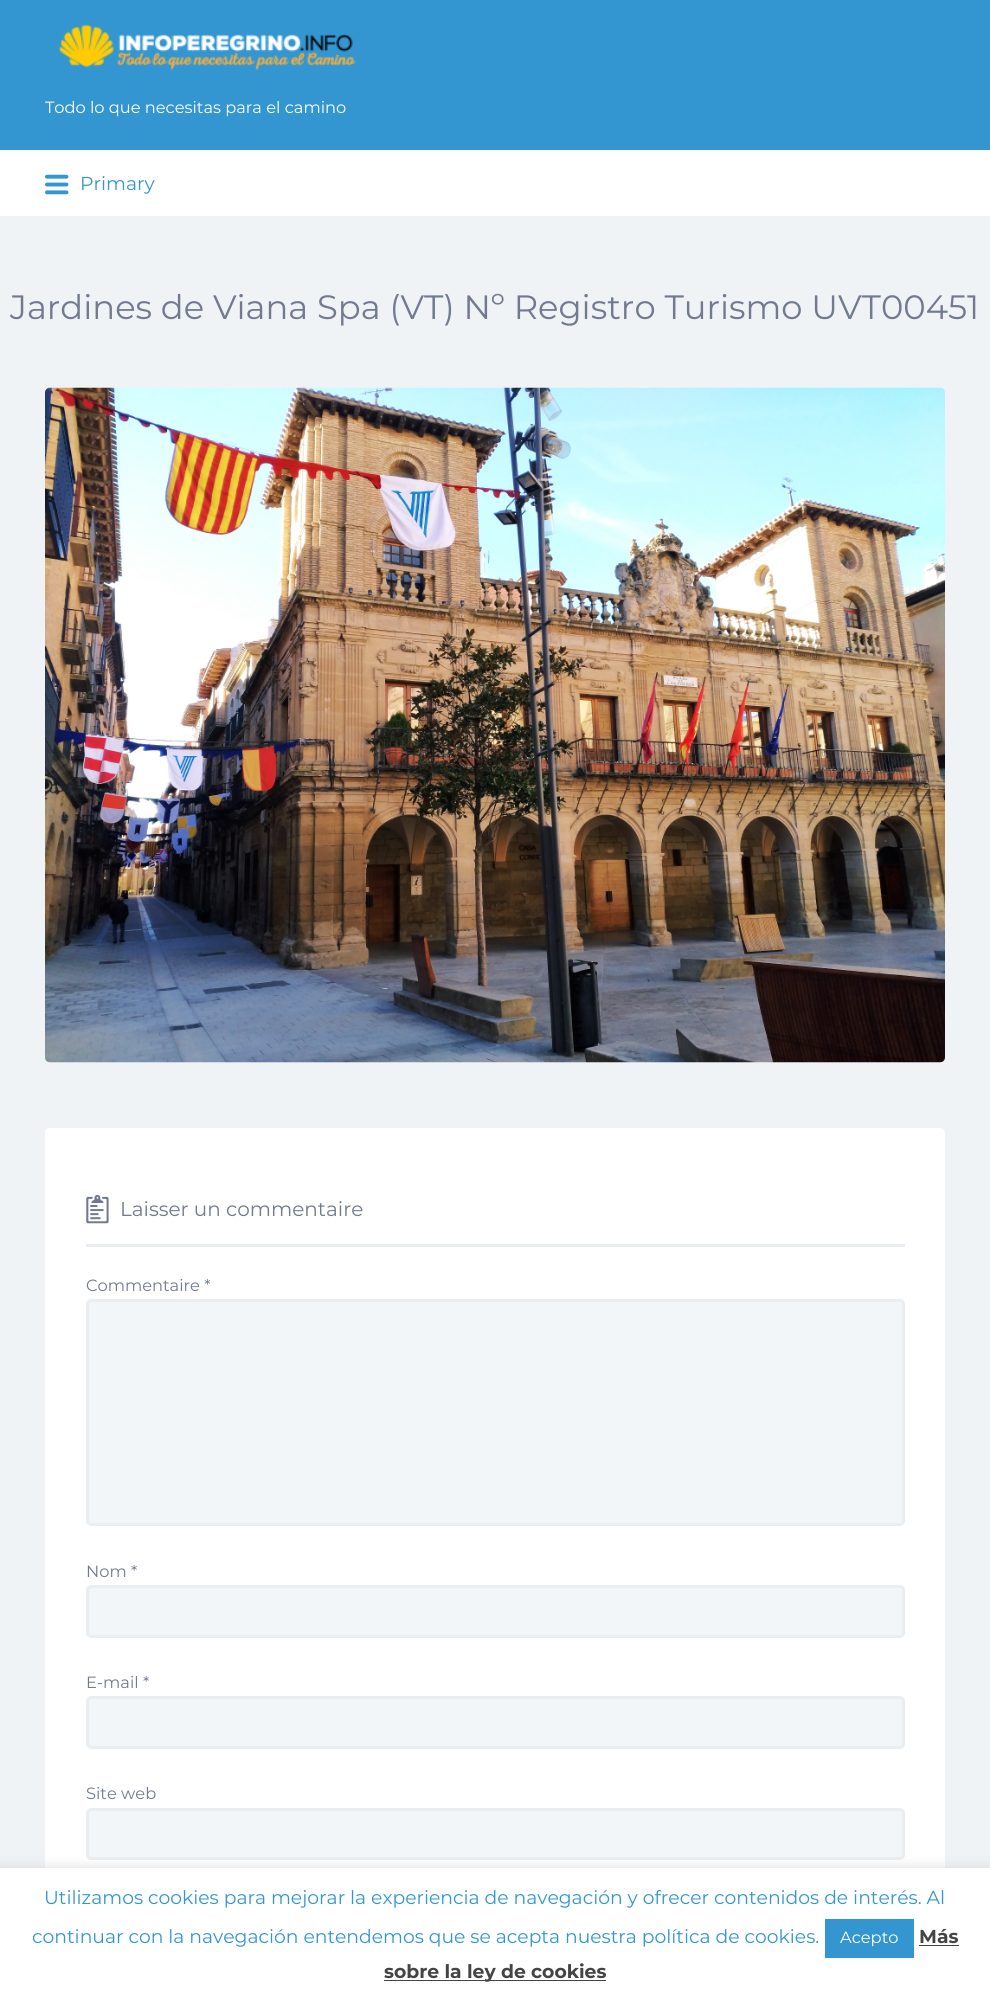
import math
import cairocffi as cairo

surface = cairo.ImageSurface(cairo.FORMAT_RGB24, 990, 2001)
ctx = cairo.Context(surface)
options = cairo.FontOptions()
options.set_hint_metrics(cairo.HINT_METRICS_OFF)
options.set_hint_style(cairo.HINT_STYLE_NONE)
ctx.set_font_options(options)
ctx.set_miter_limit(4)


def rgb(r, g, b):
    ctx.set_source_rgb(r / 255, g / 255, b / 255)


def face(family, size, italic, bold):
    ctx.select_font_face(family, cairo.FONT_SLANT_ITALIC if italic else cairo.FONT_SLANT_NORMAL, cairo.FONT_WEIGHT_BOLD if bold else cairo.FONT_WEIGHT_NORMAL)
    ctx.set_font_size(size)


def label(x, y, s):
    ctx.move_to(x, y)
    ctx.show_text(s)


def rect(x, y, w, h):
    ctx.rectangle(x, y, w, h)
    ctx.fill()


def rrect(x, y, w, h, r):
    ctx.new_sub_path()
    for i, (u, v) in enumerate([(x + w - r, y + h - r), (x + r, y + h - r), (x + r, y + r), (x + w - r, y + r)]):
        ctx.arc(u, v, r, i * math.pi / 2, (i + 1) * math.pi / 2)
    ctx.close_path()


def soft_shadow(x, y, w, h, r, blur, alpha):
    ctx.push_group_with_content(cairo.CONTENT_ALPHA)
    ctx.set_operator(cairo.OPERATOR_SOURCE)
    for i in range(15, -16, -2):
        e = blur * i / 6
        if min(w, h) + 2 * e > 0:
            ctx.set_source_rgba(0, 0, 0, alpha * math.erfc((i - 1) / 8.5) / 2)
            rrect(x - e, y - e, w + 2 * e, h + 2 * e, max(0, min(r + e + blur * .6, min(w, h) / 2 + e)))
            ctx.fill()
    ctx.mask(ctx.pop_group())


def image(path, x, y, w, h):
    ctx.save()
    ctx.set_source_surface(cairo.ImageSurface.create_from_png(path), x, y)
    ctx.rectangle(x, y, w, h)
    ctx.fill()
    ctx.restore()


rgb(240, 243, 246)
ctx.paint()
rgb(51, 150, 209)
rect(0, 0, 990, 150)
image('image0.png', 58, 24, 299, 47)
face('Montserrat', 16.25, 0, 0)
rgb(255, 255, 255)
label(45, 113, 'Todo lo que necesitas para el camino')
rect(0, 150, 990, 66)
image('image1.png', 45, 174, 24, 21)
face('Montserrat', 18.75, 0, 0)
rgb(51, 150, 209)
label(80, 190, 'Primary')
face('Montserrat', 33.75, 0, 0)
rgb(113, 122, 143)
label(10, 319, 'Jardines de Viana Spa (VT) Nº Registro Turismo UVT00451')
image('image2.png', 45, 387, 900, 676)
rgb(255, 255, 255)
rrect(45, 1128, 900, 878, 5)
ctx.fill()
rgb(233, 237, 242)
rect(86, 1244, 819, 3)
image('image3.png', 86, 1194, 23, 30)
face('Montserrat', 20, 0, 0)
rgb(113, 122, 143)
label(120, 1216, 'Laisser un commentaire')
face('Montserrat', 16.25, 0, 0)
label(86, 1291, 'Commentaire *')
rgb(243, 246, 249)
rrect(87.5, 1300.5, 816, 224, 3.5)
ctx.fill_preserve()
rgb(235, 238, 241)
ctx.set_line_width(3)
ctx.stroke()
rgb(113, 122, 143)
label(86, 1577, 'Nom *')
rgb(243, 246, 249)
rrect(87.5, 1586.5, 816, 50, 3.5)
ctx.fill_preserve()
rgb(235, 238, 241)
ctx.stroke()
rgb(113, 122, 143)
label(86, 1688, 'E-mail *')
rgb(243, 246, 249)
rrect(87.5, 1697.5, 816, 50, 3.5)
ctx.fill_preserve()
rgb(235, 238, 241)
ctx.stroke()
rgb(113, 122, 143)
label(86, 1799, 'Site web')
rgb(243, 246, 249)
rrect(87.5, 1809.5, 816, 49, 3.5)
ctx.fill_preserve()
rgb(235, 238, 241)
ctx.stroke()
rgb(172, 171, 171)
soft_shadow(0, 1866, 990, 134, 0, 6, 0.3)
rgb(255, 255, 255)
rect(0, 1868, 990, 133)
face('Montserrat', 18.75, 0, 0)
rgb(51, 150, 209)
label(44, 1904, 'Utilizamos cookies para mejorar la experiencia de navegación y ofrecer contenidos de interés. Al')
label(32, 1943, 'continuar con la navegación entendemos que se acepta nuestra política de cookies.')
rect(825, 1919, 89, 39)
face('Montserrat', 16.25, 0, 0)
rgb(255, 255, 255)
label(840, 1943, 'Acepto')
face('Montserrat', 18.75, 0, 1)
rgb(68, 68, 68)
label(919, 1943, 'Más')
rect(919, 1945, 40, 1)
rect(384, 1980, 222, 1)
label(384, 1978, 'sobre la ley de cookies')
surface.write_to_png('render.png')
